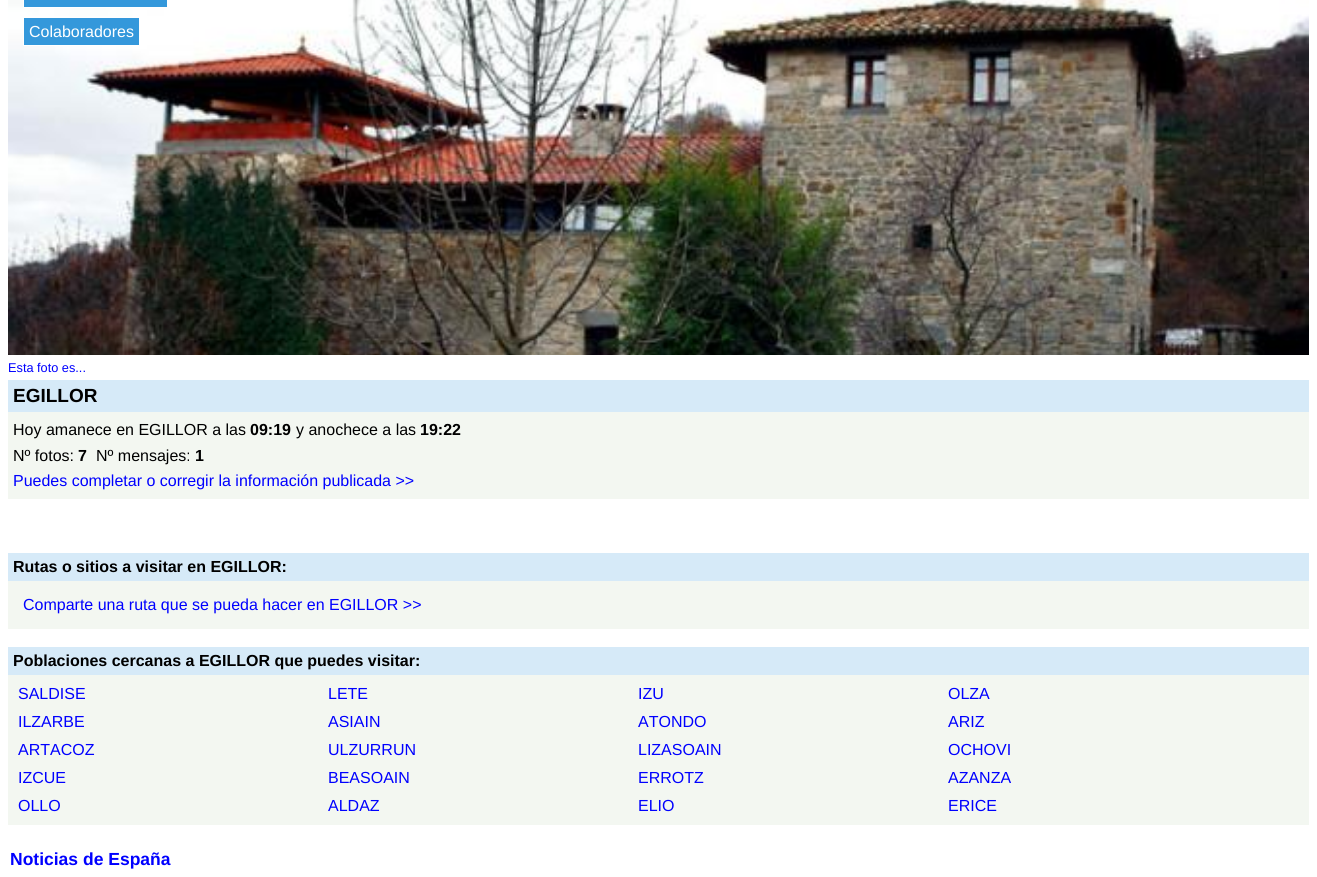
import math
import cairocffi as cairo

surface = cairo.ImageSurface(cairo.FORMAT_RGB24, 1317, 877)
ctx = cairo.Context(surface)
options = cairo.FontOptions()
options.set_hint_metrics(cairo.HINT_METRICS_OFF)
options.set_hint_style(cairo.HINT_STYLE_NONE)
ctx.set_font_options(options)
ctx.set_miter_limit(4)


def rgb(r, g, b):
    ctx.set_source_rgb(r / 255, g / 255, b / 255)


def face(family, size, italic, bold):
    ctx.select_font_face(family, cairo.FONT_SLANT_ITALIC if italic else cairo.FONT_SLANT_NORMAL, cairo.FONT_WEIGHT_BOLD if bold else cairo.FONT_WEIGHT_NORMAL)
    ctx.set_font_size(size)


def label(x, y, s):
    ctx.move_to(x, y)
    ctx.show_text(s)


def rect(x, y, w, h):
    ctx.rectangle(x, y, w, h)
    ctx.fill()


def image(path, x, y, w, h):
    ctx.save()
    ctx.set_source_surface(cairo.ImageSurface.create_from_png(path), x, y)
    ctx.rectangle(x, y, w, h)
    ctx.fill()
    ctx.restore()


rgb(255, 255, 255)
ctx.paint()
image('image0.png', 8, 0, 1301, 355)
rgb(52, 152, 219)
ctx.rectangle(23.5, -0.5, 144, 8)
ctx.fill_preserve()
rgb(255, 255, 255)
ctx.set_line_width(1)
ctx.stroke()
rgb(52, 152, 219)
ctx.rectangle(23.5, 17.5, 116, 28)
ctx.fill_preserve()
rgb(255, 255, 255)
ctx.stroke()
face('Liberation Sans', 16, 0, 0)
label(29, 37, 'Colaboradores')
face('Liberation Sans', 12.75, 0, 0)
rgb(0, 0, 255)
label(8, 372, 'Esta foto es...')
rgb(214, 234, 248)
rect(8, 380, 1301, 32)
face('Liberation Sans', 19, 0, 1)
rgb(0, 0, 0)
label(13, 402, 'EGILLOR')
rgb(243, 247, 241)
rect(8, 412, 1301, 87)
face('Liberation Sans', 16, 0, 0)
rgb(0, 0, 0)
label(13, 435, 'Hoy amanece en EGILLOR a las')
face('Liberation Sans', 16, 0, 1)
label(250, 435, '09:19')
face('Liberation Sans', 16, 0, 0)
label(296, 435, 'y anochece a las')
face('Liberation Sans', 16, 0, 1)
label(420, 435, '19:22')
face('Liberation Sans', 16, 0, 0)
label(13, 461, 'Nº fotos:')
face('Liberation Sans', 16, 0, 1)
label(78, 461, '7')
face('Liberation Sans', 16, 0, 0)
label(96, 461, 'Nº mensajes:')
face('Liberation Sans', 16, 0, 1)
label(195, 461, '1')
face('Liberation Sans', 16, 0, 0)
rgb(0, 0, 255)
label(13, 486, 'Puedes completar o corregir la información publicada >>')
rgb(214, 234, 248)
rect(8, 553, 1301, 28)
face('Liberation Sans', 16, 0, 1)
rgb(0, 0, 0)
label(13, 572, 'Rutas o sitios a visitar en EGILLOR:')
rgb(243, 247, 241)
rect(8, 581, 1301, 48)
face('Liberation Sans', 16, 0, 0)
rgb(0, 0, 255)
label(23, 610, 'Comparte una ruta que se pueda hacer en EGILLOR >>')
rgb(214, 234, 248)
rect(8, 647, 1301, 28)
face('Liberation Sans', 16, 0, 1)
rgb(0, 0, 0)
label(13, 666, 'Poblaciones cercanas a EGILLOR que puedes visitar:')
rgb(243, 247, 241)
rect(8, 675, 1301, 150)
face('Liberation Sans', 16, 0, 0)
rgb(0, 0, 255)
label(18, 699, 'SALDISE')
label(328, 699, 'LETE')
label(638, 699, 'IZU')
label(948, 699, 'OLZA')
label(18, 727, 'ILZARBE')
label(328, 727, 'ASIAIN')
label(638, 727, 'ATONDO')
label(948, 727, 'ARIZ')
label(18, 755, 'ARTACOZ')
label(328, 755, 'ULZURRUN')
label(638, 755, 'LIZASOAIN')
label(948, 755, 'OCHOVI')
label(18, 783, 'IZCUE')
label(328, 783, 'BEASOAIN')
label(638, 783, 'ERROTZ')
label(948, 783, 'AZANZA')
label(18, 811, 'OLLO')
label(328, 811, 'ALDAZ')
label(638, 811, 'ELIO')
label(948, 811, 'ERICE')
face('Liberation Sans', 17.5, 0, 1)
label(10, 865, 'Noticias de España')
surface.write_to_png('render.png')
